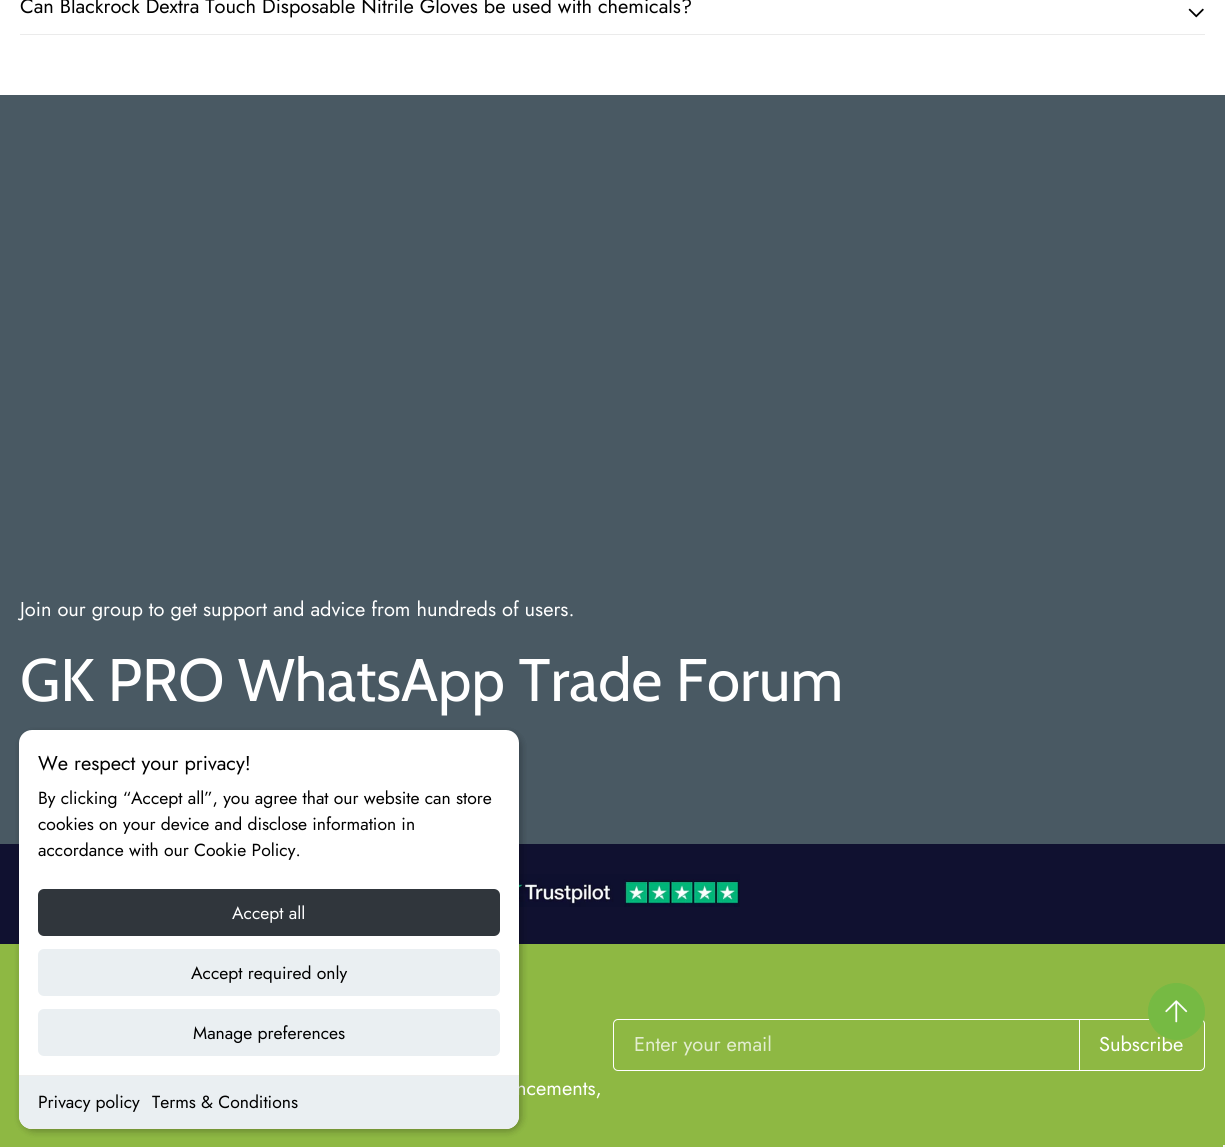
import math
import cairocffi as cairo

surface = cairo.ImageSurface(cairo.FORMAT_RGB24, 1225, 1147)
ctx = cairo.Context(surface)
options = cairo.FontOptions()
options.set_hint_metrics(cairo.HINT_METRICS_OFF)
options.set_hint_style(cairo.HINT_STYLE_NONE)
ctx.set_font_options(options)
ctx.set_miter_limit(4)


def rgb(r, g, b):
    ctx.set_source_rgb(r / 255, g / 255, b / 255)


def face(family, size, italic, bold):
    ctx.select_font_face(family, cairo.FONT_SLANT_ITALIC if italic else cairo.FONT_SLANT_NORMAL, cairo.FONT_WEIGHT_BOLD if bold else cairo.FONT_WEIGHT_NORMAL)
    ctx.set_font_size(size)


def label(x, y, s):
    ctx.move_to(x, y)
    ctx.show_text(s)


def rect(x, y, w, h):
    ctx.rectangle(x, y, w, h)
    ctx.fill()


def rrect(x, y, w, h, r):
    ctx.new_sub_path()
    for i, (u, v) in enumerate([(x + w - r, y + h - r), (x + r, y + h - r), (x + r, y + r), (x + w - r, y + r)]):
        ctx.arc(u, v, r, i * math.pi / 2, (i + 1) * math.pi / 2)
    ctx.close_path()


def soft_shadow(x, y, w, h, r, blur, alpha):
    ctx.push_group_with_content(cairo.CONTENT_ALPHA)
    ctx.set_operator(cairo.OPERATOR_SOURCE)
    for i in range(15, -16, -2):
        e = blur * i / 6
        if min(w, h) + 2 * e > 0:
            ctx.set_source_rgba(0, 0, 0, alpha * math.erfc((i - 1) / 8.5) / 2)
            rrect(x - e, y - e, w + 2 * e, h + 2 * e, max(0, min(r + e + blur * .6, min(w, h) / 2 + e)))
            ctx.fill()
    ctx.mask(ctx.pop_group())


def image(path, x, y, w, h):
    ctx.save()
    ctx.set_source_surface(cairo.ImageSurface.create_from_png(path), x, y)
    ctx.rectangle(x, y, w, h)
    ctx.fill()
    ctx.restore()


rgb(255, 255, 255)
ctx.paint()
rgb(235, 235, 235)
rect(20, 34, 1185, 1)
face('Jost', 20, 0, 0)
rgb(0, 0, 0)
label(20, 13, 'Can Blackrock Dextra Touch Disposable Nitrile Gloves be used with chemicals?')
image('image0.png', 1188, 8, 16, 10)
rgb(73, 89, 99)
rect(0, 95, 1225, 749)
rgb(255, 255, 255)
label(20, 616, 'Join our group to get support and advice from hundreds of users.')
face('Cabin', 60, 0, 0)
label(20, 701, 'GK PRO WhatsApp Trade Forum')
rgb(16, 17, 48)
rect(0, 844, 1225, 100)
image('image1.png', 519, 874, 221, 33)
rgb(142, 184, 67)
rect(0, 944, 1225, 203)
rrect(613.5, 1019.5, 591, 51, 4.5)
rgb(255, 255, 255)
ctx.set_line_width(1)
ctx.stroke()
face('Jost', 20, 0, 0)
label(1099, 1051, 'Subscribe')
rgb(118, 186, 67)
ctx.new_path()
ctx.arc(1176.5, 1011.5, 28, 0, 2 * math.pi)
ctx.fill_preserve()
ctx.stroke()
image('image2.png', 1165, 1000, 23, 23)
rgb(227, 237, 208)
label(634, 1051, 'Enter your email')
rgb(255, 255, 255)
rect(1079, 1020, 1, 50)
label(516, 1095, 'ncements,')
rgb(0, 0, 0)
soft_shadow(21, 733, 500, 398, 13, 4, 0.15)
soft_shadow(21, 733, 500, 398, 13, 4, 0.15)
rgb(255, 255, 255)
rrect(19, 730, 500, 399, 13)
ctx.fill()
rgb(0, 0, 0)
label(38, 770, 'We respect your privacy!')
face('Jost', 17.5, 0, 0)
label(38, 804, 'By clicking “Accept all”, you agree that our website can store')
label(38, 830, 'cookies on your device and disclose information in')
label(38, 856, 'accordance with our Cookie Policy.')
rgb(48, 54, 60)
rrect(38, 889, 462, 47, 6)
ctx.fill()
rgb(255, 255, 255)
label(232, 919, 'Accept all')
rgb(234, 239, 242)
rrect(38, 949, 462, 47, 6)
ctx.fill()
rgb(0, 0, 0)
label(191, 979, 'Accept required only')
rgb(234, 239, 242)
rrect(38, 1009, 462, 47, 6)
ctx.fill()
rgb(0, 0, 0)
label(193, 1039, 'Manage preferences')
ctx.save()
rrect(19, 730, 500, 399, 13)
ctx.clip()
rgb(234, 239, 242)
rect(19, 1076, 500, 52)
ctx.restore()
rgb(238, 238, 238)
rect(19, 1075, 500, 1)
ctx.save()
rrect(19, 730, 500, 399, 13)
ctx.clip()
rect(19, 1128, 500, 1)
ctx.restore()
rgb(0, 0, 0)
label(38, 1108, 'Privacy policy')
label(152, 1108, 'Terms & Conditions')
rgb(245, 245, 245)
rect(1223, 1145, 2, 2)
surface.write_to_png('render.png')
